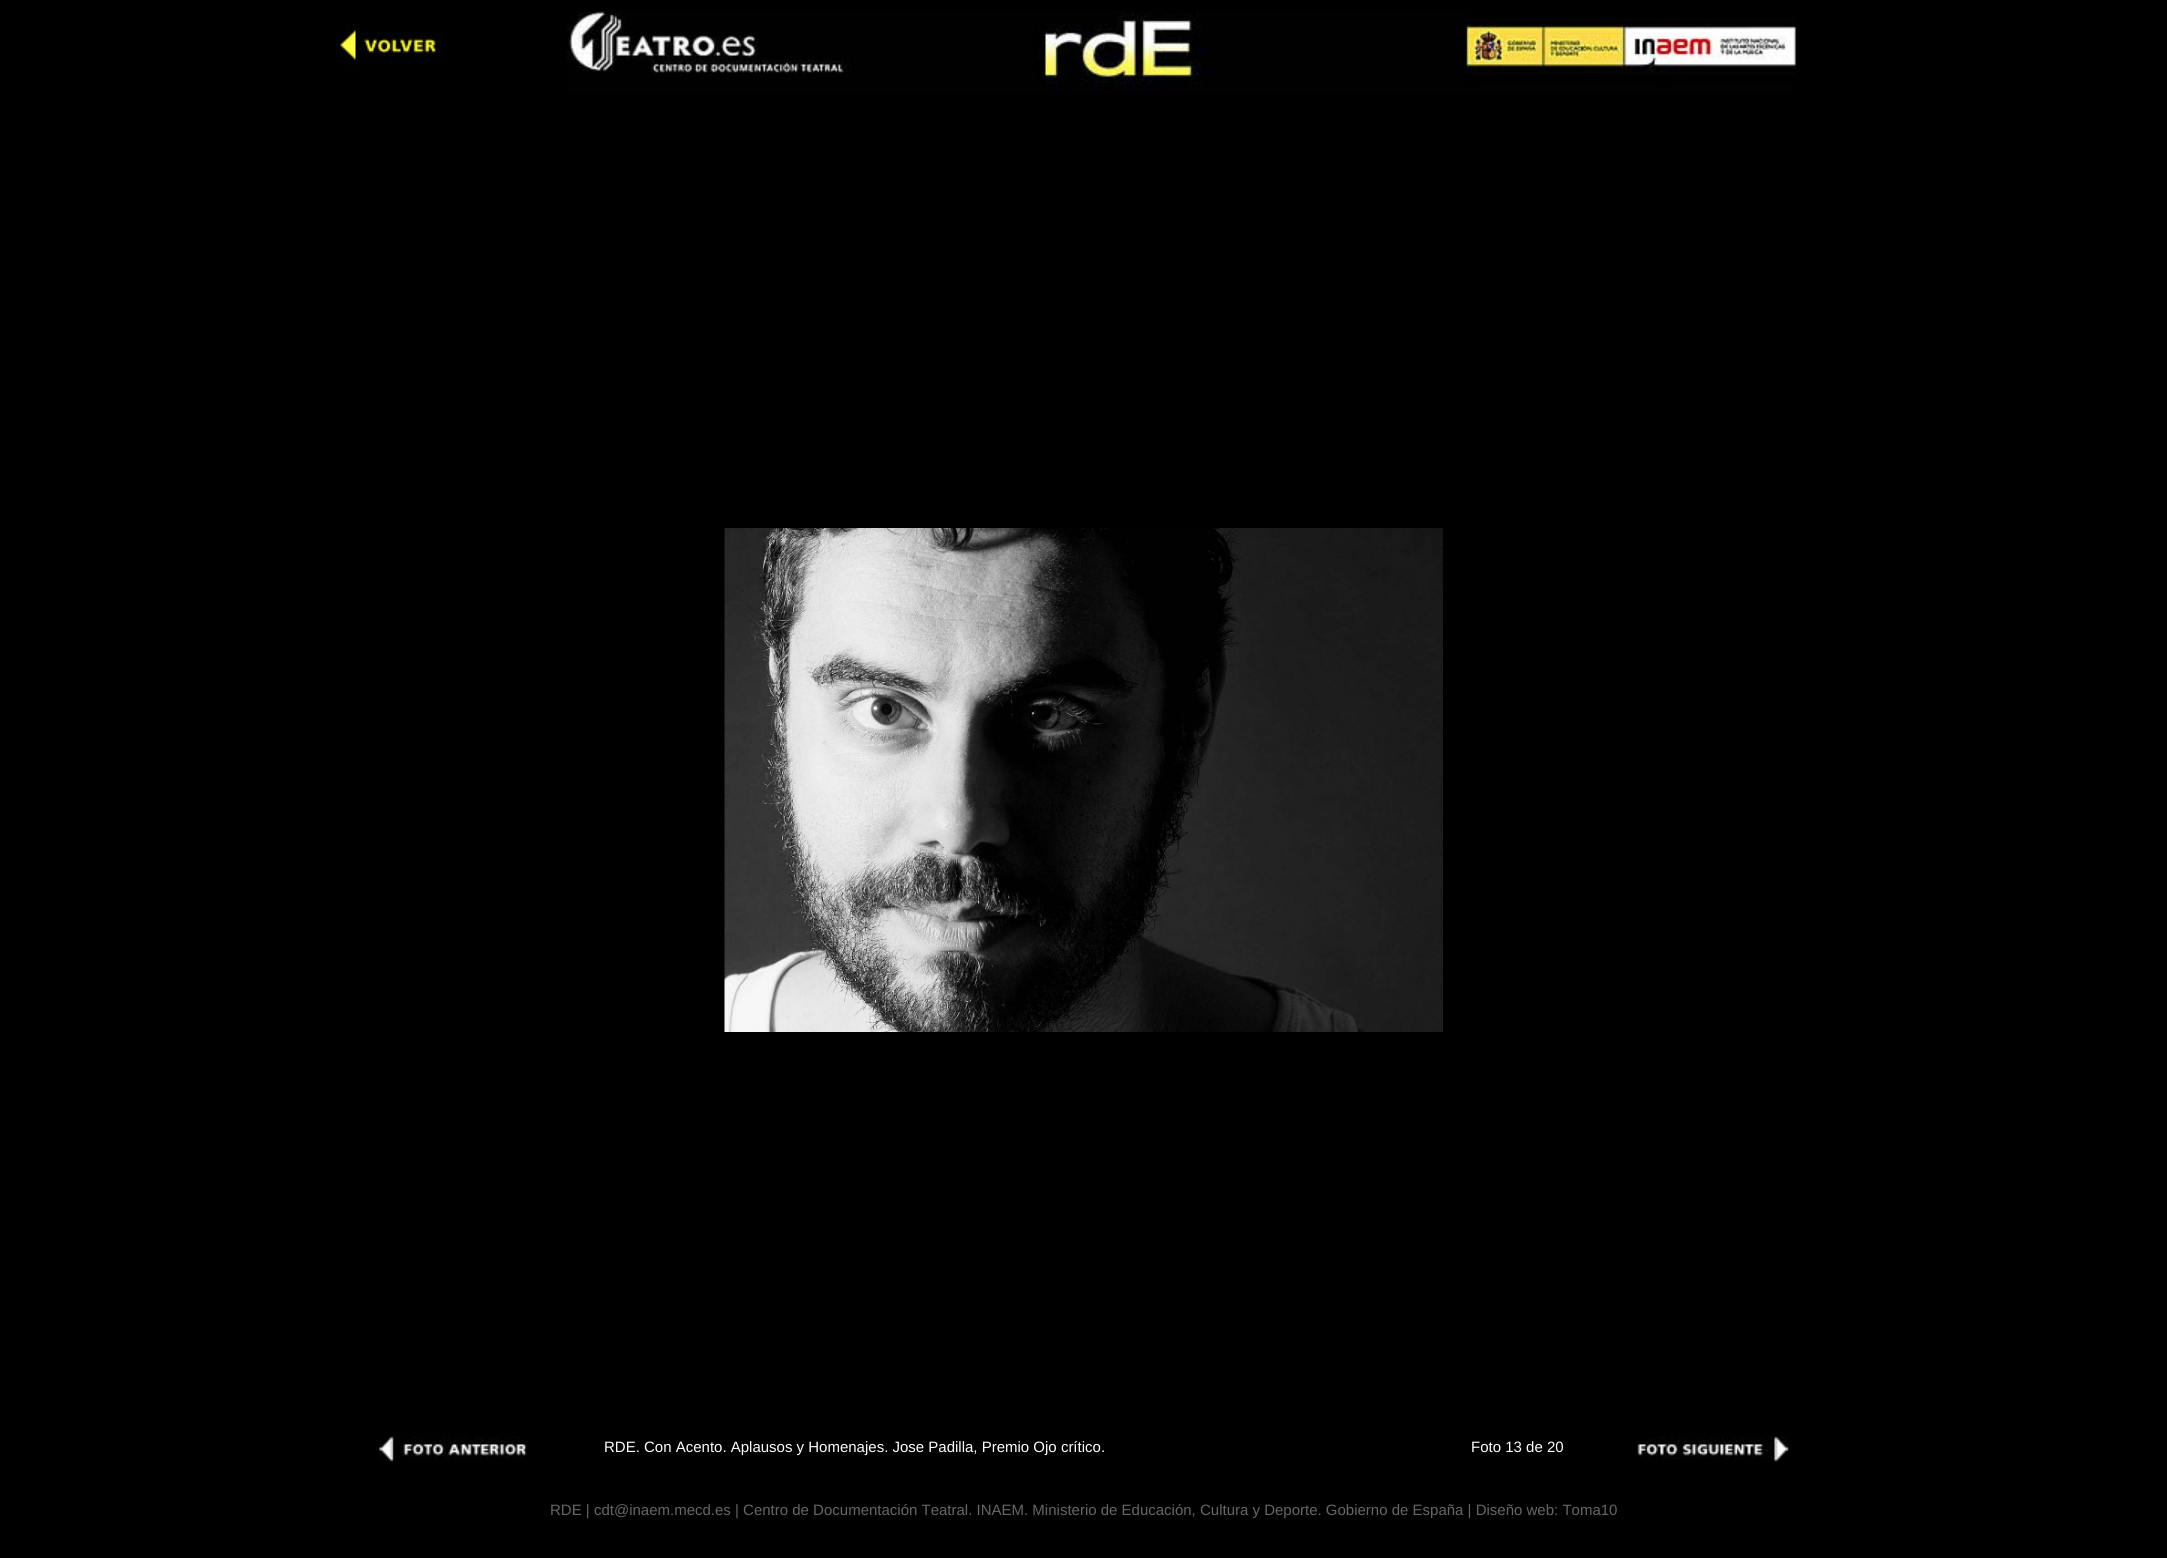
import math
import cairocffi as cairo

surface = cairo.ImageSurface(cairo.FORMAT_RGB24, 2167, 1558)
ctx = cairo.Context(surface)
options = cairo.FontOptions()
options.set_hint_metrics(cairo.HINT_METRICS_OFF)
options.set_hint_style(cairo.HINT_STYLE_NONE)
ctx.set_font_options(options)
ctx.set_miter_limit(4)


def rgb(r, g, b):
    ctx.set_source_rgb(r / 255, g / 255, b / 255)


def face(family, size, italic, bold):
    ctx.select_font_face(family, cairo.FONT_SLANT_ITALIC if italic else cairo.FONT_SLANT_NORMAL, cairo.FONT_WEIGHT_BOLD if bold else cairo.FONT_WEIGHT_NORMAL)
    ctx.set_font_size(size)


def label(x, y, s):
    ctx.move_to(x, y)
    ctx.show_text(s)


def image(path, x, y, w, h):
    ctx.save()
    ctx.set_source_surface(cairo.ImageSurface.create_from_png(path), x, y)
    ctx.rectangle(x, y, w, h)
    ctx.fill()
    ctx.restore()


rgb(0, 0, 0)
ctx.paint()
image('image0.png', 334, 21, 109, 48)
image('image1.png', 566, 11, 1230, 82)
image('image2.png', 724, 528, 719, 504)
image('image3.png', 379, 1435, 148, 27)
face('Liberation Sans', 15, 0, 0)
rgb(255, 255, 255)
label(604, 1452, 'RDE. Con Acento. Aplausos y Homenajes. Jose Padilla, Premio Ojo crítico.')
label(1471, 1452, 'Foto 13 de 20')
image('image4.png', 1637, 1436, 152, 26)
rgb(102, 102, 102)
label(550, 1515, 'RDE | cdt@inaem.mecd.es | Centro de Documentación Teatral. INAEM. Ministerio de Educación, Cultura y Deporte. Gobierno de España | Diseño web: Toma10')
surface.write_to_png('render.png')
